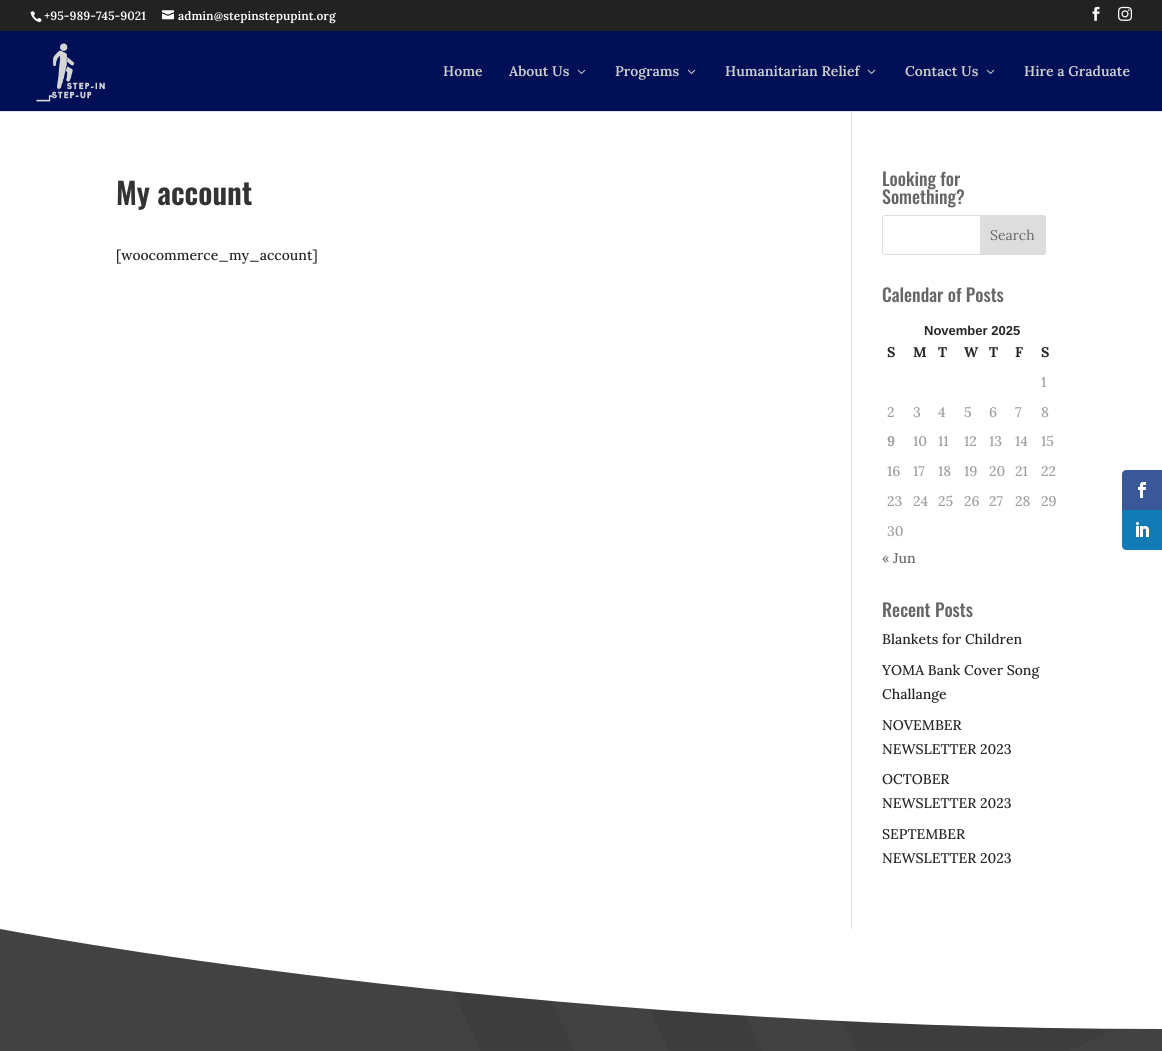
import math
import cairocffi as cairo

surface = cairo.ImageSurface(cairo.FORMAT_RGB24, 1162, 1051)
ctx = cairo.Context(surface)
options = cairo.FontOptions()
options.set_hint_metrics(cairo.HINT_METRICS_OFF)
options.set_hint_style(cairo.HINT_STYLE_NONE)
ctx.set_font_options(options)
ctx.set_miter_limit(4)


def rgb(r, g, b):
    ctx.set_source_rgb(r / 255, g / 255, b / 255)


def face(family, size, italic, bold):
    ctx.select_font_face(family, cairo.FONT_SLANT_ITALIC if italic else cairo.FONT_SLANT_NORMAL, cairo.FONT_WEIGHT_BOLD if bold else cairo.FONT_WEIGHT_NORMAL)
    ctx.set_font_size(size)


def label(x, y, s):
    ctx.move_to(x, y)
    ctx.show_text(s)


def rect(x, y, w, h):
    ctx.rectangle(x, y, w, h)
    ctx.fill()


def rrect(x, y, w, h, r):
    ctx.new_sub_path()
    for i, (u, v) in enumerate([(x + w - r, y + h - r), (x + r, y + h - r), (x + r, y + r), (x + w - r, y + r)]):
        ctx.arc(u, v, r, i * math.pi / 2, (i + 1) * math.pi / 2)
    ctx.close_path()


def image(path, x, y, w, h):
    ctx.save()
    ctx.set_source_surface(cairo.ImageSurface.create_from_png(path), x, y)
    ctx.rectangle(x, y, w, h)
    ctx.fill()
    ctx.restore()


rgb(255, 255, 255)
ctx.paint()
rgb(34, 34, 34)
rect(0, 0, 1162, 31)
image('image0.png', 30, 11, 12, 12)
face('Lora SemiBold', 12, 0, 0)
rgb(255, 255, 255)
label(44, 20, '+95-989-745-9021')
image('image1.png', 162, 10, 12, 10)
label(178, 20, 'admin@stepinstepupint.org')
image('image2.png', 1092, 6, 8, 15)
image('image3.png', 1118, 6, 14, 15)
rgb(0, 15, 86)
rect(0, 31, 1162, 80)
image('image4.png', 36, 43, 69, 59)
face('Lora SemiBold', 14, 0, 0)
rgb(206, 206, 206)
label(443, 76, 'Home')
label(509, 76, 'About Us')
image('image5.png', 577, 69, 9, 5)
label(615, 76, 'Programs')
image('image5.png', 687, 69, 9, 5)
label(725, 76, 'Humanitarian Relief')
image('image5.png', 867, 69, 9, 5)
label(905, 76, 'Contact Us')
image('image5.png', 986, 69, 9, 5)
label(1024, 76, 'Hire a Graduate')
rgb(230, 230, 230)
rect(0, 111, 1162, 1)
rgb(226, 226, 226)
rect(851, 111, 1, 818)
rgb(203, 203, 203)
rect(851, 111, 1, 1)
face('Oswald SemiBold', 30, 0, 0)
rgb(51, 51, 51)
label(116, 205, 'My account')
face('Lora Medium', 14, 0, 0)
rgb(38, 38, 38)
label(116, 260, '[woocommerce_my_account]')
face('Oswald Medium', 18, 0, 0)
rgb(102, 102, 102)
label(882, 186, 'Looking for')
label(882, 204, 'Something?')
rrect(882.5, 215.5, 163, 39, 2.5)
rgb(221, 221, 221)
ctx.set_line_width(1)
ctx.stroke()
ctx.new_path()
ctx.move_to(980.5, 215.5)
ctx.line_to(1043, 215.5)
ctx.curve_to(1044.5, 215.5, 1045.5, 216.5, 1045.5, 218)
ctx.line_to(1045.5, 252)
ctx.curve_to(1045.5, 253.5, 1044.5, 254.5, 1043, 254.5)
ctx.line_to(980.5, 254.5)
ctx.close_path()
ctx.fill_preserve()
ctx.stroke()
face('Lora', 14, 0, 0)
rgb(102, 102, 102)
label(990, 240, 'Search')
face('Oswald Medium', 18, 0, 0)
label(882, 302, 'Calendar of Posts')
face('Liberation Sans', 13, 0, 1)
rgb(38, 38, 38)
label(924, 335, 'November 2025')
face('Lora', 14, 0, 1)
label(887, 357, 'S')
label(913, 357, 'M')
label(938, 357, 'T')
label(964, 357, 'W')
label(989, 357, 'T')
label(1015, 357, 'F')
label(1041, 357, 'S')
face('Lora Medium', 14, 0, 0)
rgb(159, 159, 159)
label(1041, 387, '1')
label(887, 417, '2')
label(913, 417, '3')
label(938, 417, '4')
label(964, 417, '5')
label(989, 417, '6')
label(1015, 417, '7')
label(1041, 417, '8')
face('Lora', 14, 0, 1)
label(887, 446, '9')
face('Lora Medium', 14, 0, 0)
label(913, 446, '10')
label(938, 446, '11')
label(964, 446, '12')
label(989, 446, '13')
label(1015, 446, '14')
label(1041, 446, '15')
label(887, 476, '16')
label(913, 476, '17')
label(938, 476, '18')
label(964, 476, '19')
label(989, 476, '20')
label(1015, 476, '21')
label(1041, 476, '22')
label(887, 506, '23')
label(913, 506, '24')
label(938, 506, '25')
label(964, 506, '26')
label(989, 506, '27')
label(1015, 506, '28')
label(1041, 506, '29')
label(887, 536, '30')
rgb(102, 102, 102)
label(882, 563, '« Jun')
face('Oswald Medium', 18, 0, 0)
label(882, 617, 'Recent Posts')
face('Lora Medium', 14, 0, 0)
rgb(38, 38, 38)
label(882, 644, 'Blankets for Children')
label(882, 675, 'YOMA Bank Cover Song')
label(882, 699, 'Challange')
label(882, 730, 'NOVEMBER')
label(882, 754, 'NEWSLETTER 2023')
label(882, 784, 'OCTOBER')
label(882, 808, 'NEWSLETTER 2023')
label(882, 839, 'SEPTEMBER')
label(882, 863, 'NEWSLETTER 2023')
rgb(66, 66, 66)
rect(0, 929, 1162, 122)
ctx.save()
ctx.rectangle(0, 929, 1162, 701)
ctx.clip()
rgb(61, 61, 61)
ctx.new_path()
ctx.move_to(1162, 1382)
ctx.line_to(1162, 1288)
ctx.line_to(775, 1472)
ctx.line_to(477, 844)
ctx.line_to(383, 844)
ctx.line_to(734, 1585)
ctx.close_path()
ctx.fill()
ctx.new_path()
ctx.move_to(1162, 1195)
ctx.line_to(1162, 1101)
ctx.line_to(855, 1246)
ctx.line_to(664, 844)
ctx.line_to(570, 844)
ctx.line_to(815, 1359)
ctx.close_path()
ctx.fill()
ctx.new_path()
ctx.move_to(1162, 1007)
ctx.line_to(1162, 940)
ctx.line_to(1117, 844)
ctx.line_to(1023, 844)
ctx.line_to(1075, 954)
ctx.line_to(936, 1021)
ctx.line_to(869, 881)
ctx.line_to(947, 844)
ctx.line_to(758, 844)
ctx.line_to(895, 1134)
ctx.close_path()
ctx.fill()
ctx.restore()
rgb(255, 255, 255)
ctx.new_path()
ctx.move_to(0, 929)
ctx.curve_to(0, 929, 520, 1029, 1162, 1029)
ctx.line_to(1162, 929)
ctx.close_path()
ctx.fill()
rgb(58, 87, 154)
ctx.new_path()
ctx.move_to(1126, 470)
ctx.line_to(1162, 470)
ctx.line_to(1162, 510)
ctx.line_to(1122, 510)
ctx.line_to(1122, 474)
ctx.curve_to(1122, 472, 1124, 470, 1126, 470)
ctx.close_path()
ctx.fill()
image('image6.png', 1138, 482, 8, 16)
rgb(18, 123, 182)
ctx.new_path()
ctx.move_to(1122, 510)
ctx.line_to(1162, 510)
ctx.line_to(1162, 550)
ctx.line_to(1126, 550)
ctx.curve_to(1124, 550, 1122, 548, 1122, 546)
ctx.close_path()
ctx.fill()
image('image7.png', 1136, 522, 13, 15)
surface.write_to_png('render.png')
